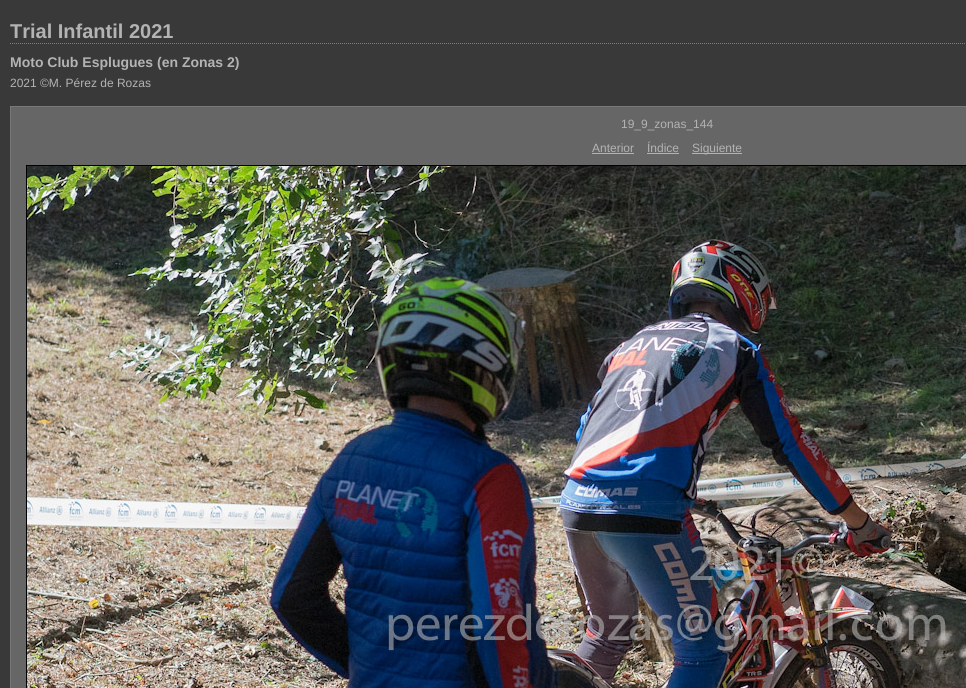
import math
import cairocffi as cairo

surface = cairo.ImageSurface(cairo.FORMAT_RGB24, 966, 688)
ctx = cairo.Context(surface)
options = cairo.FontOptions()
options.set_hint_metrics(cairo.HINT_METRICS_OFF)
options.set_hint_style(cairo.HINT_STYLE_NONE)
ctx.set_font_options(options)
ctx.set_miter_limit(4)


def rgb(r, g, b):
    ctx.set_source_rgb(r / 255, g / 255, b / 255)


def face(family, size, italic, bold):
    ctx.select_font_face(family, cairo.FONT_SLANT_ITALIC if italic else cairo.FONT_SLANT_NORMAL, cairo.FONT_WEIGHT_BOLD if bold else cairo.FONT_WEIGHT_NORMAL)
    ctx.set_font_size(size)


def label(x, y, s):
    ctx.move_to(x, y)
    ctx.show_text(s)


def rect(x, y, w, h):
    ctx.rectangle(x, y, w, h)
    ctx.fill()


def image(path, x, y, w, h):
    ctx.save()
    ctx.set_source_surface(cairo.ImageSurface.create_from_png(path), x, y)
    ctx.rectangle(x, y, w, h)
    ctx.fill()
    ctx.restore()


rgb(57, 57, 57)
ctx.paint()
ctx.new_path()
ctx.move_to(10, 43.5)
ctx.line_to(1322, 43.5)
rgb(127, 127, 127)
ctx.set_line_width(1)
ctx.set_dash([1, 1])
ctx.stroke()
face('Liberation Sans', 20, 0, 1)
rgb(179, 179, 179)
label(10, 38, 'Trial Infantil 2021')
face('Liberation Sans', 14, 0, 1)
label(10, 67, 'Moto Club Esplugues (en Zonas 2)')
face('Liberation Sans', 12, 0, 0)
label(10, 87, '2021 ©M. Pérez de Rozas')
rgb(102, 102, 102)
ctx.rectangle(10.5, 106.5, 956, 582)
ctx.fill_preserve()
rgb(120, 120, 120)
ctx.set_dash([])
ctx.stroke()
rgb(179, 179, 179)
label(621, 128, '19_9_zonas_144')
label(592, 152, 'Anterior')
rect(592, 153, 42, 1)
label(647, 152, 'Índice')
rect(647, 153, 32, 1)
rect(692, 153, 50, 1)
label(692, 152, 'Siguiente')
ctx.rectangle(26.5, 165.5, 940, 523)
rgb(0, 0, 0)
ctx.stroke()
image('image0.png', 27, 166, 939, 522)
surface.write_to_png('render.png')
